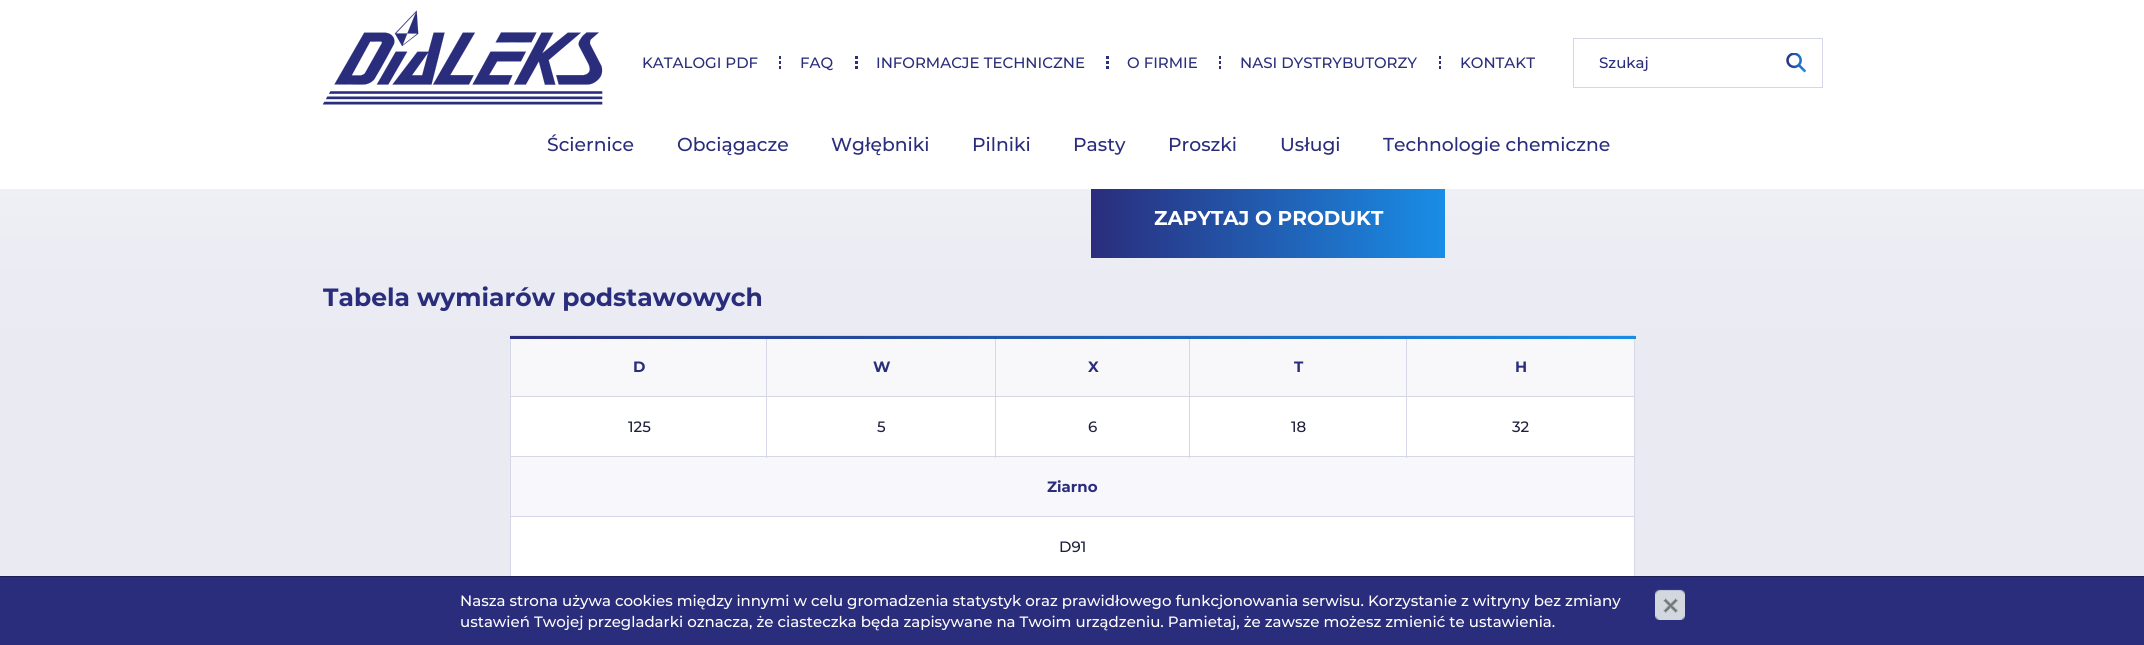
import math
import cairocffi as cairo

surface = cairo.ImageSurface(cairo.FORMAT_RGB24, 2144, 645)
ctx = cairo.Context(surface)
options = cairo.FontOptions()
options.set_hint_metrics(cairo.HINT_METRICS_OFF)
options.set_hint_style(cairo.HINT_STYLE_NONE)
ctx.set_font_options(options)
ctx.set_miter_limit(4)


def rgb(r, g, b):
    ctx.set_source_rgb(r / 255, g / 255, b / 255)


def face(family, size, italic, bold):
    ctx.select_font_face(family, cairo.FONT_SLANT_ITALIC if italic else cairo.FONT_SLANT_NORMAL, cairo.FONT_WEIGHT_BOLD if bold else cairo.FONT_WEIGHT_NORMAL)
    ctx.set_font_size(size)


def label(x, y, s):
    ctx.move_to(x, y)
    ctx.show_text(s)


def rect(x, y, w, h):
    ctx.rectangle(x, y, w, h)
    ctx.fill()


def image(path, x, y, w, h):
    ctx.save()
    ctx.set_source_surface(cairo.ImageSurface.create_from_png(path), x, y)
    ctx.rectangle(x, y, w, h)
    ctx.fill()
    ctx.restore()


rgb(233, 234, 242)
ctx.paint()
rgb(255, 255, 255)
rect(0, 0, 2144, 189)
image('image0.png', 323, 10, 280, 95)
face('Montserrat Medium', 15, 0, 0)
rgb(42, 45, 123)
label(642, 68, 'KATALOGI PDF')
rgb(42, 49, 119)
rect(779, 56, 2, 3)
rect(779, 61, 2, 3)
rect(779, 66, 2, 3)
rgb(42, 45, 123)
label(800, 68, 'FAQ')
rgb(42, 49, 119)
rect(855, 56, 3, 3)
rect(855, 61, 3, 3)
rect(855, 66, 3, 3)
rgb(42, 45, 123)
label(876, 68, 'INFORMACJE TECHNICZNE')
rgb(42, 49, 119)
rect(1106, 56, 3, 3)
rect(1106, 61, 3, 3)
rect(1106, 66, 3, 3)
rgb(42, 45, 123)
label(1127, 68, 'O FIRMIE')
rgb(42, 49, 119)
rect(1219, 56, 2, 3)
rect(1219, 61, 2, 3)
rect(1219, 66, 2, 3)
rgb(42, 45, 123)
label(1240, 68, 'NASI DYSTRYBUTORZY')
rgb(42, 49, 119)
rect(1439, 56, 2, 3)
rect(1439, 61, 2, 3)
rect(1439, 66, 2, 3)
rgb(42, 45, 123)
label(1460, 68, 'KONTAKT')
face('Montserrat Medium', 18.75, 0, 0)
label(547, 151, 'Ściernice')
label(677, 151, 'Obciągacze')
label(831, 151, 'Wgłębniki')
label(972, 151, 'Pilniki')
label(1073, 151, 'Pasty')
label(1168, 151, 'Proszki')
label(1280, 151, 'Usługi')
label(1383, 151, 'Technologie chemiczne')
ctx.rectangle(1573.5, 38.5, 249, 49)
rgb(214, 215, 230)
ctx.set_line_width(1)
ctx.stroke()
face('Montserrat Medium', 15, 0, 0)
rgb(42, 45, 123)
label(1599, 68, 'Szukaj')
image('image1.png', 1786, 53, 20, 20)
image('image2.png', 0, 189, 2144, 190)
gradient = cairo.LinearGradient(1091, 219, 1445, 219)
gradient.add_color_stop_rgba(0, 0.165, 0.176, 0.486, 1)
gradient.add_color_stop_rgba(1, 0.098, 0.553, 0.902, 1)
ctx.set_source(gradient)
rect(1091, 189, 354, 69)
face('Montserrat', 20, 0, 1)
rgb(255, 255, 255)
label(1154, 225, 'ZAPYTAJ O PRODUKT')
face('Montserrat', 25, 0, 1)
rgb(42, 45, 123)
label(323, 306, 'Tabela wymiarów podstawowych')
rgb(214, 215, 230)
rect(1406, 335, 229, 1)
rgb(248, 248, 251)
rect(511, 339, 1123, 57)
rgb(214, 215, 230)
rect(1406, 335, 1, 61)
rect(1189, 335, 219, 1)
rect(1189, 335, 1, 61)
rect(995, 335, 195, 1)
rect(995, 335, 1, 61)
rect(766, 335, 230, 1)
rect(766, 335, 1, 61)
rect(510, 335, 258, 1)
rect(510, 335, 1, 61)
rect(1634, 335, 1, 61)
gradient = cairo.LinearGradient(510, 338, 1636, 338)
gradient.add_color_stop_rgba(0, 0.165, 0.176, 0.486, 1)
gradient.add_color_stop_rgba(1, 0.098, 0.553, 0.902, 1)
ctx.set_source(gradient)
rect(510, 336, 1126, 3)
face('Montserrat', 15, 0, 1)
rgb(42, 45, 123)
label(633, 372, 'D')
label(873, 372, 'W')
label(1088, 372, 'X')
label(1294, 372, 'T')
label(1515, 372, 'H')
rgb(255, 255, 255)
rect(511, 397, 484, 59)
rgb(214, 215, 230)
rect(1406, 396, 229, 1)
rgb(248, 247, 252)
rect(511, 457, 1123, 59)
rgb(214, 215, 230)
rect(510, 456, 1125, 1)
rect(1406, 396, 1, 62)
rect(1189, 396, 219, 1)
rect(1189, 396, 1, 62)
rect(995, 396, 195, 1)
rect(995, 396, 1, 62)
rect(766, 396, 230, 1)
rect(766, 396, 1, 62)
rect(510, 396, 258, 1)
rect(510, 516, 1125, 1)
rect(510, 516, 1, 62)
rect(510, 456, 1, 62)
rect(510, 396, 1, 62)
face('Montserrat Medium', 15, 0, 0)
rgb(31, 32, 61)
label(628, 432, '125')
label(877, 432, '5')
rgb(255, 255, 255)
rect(996, 397, 193, 59)
rgb(31, 32, 61)
label(1088, 432, '6')
rgb(255, 255, 255)
rect(1190, 397, 216, 59)
rgb(31, 32, 61)
label(1291, 432, '18')
rgb(255, 255, 255)
rect(1407, 397, 227, 59)
rgb(214, 215, 230)
rect(1634, 516, 1, 62)
rect(1634, 456, 1, 62)
rect(1634, 396, 1, 62)
rgb(31, 32, 61)
label(1512, 432, '32')
face('Montserrat', 15, 0, 1)
rgb(42, 45, 123)
label(1047, 492, 'Ziarno')
rgb(255, 255, 255)
rect(511, 517, 1123, 59)
face('Montserrat Medium', 15, 0, 0)
rgb(31, 32, 61)
label(1059, 552, 'D91')
rgb(42, 45, 123)
rect(0, 577, 2144, 68)
rgb(29, 31, 85)
rect(0, 576, 2144, 1)
rgb(255, 255, 255)
label(460, 606, 'Nasza strona używa cookies między innymi w celu gromadzenia statystyk oraz prawidłowego funkcjonowania serwisu. Korzystanie z witryny bez zmiany')
image('image3.png', 1655, 589, 30, 31)
label(460, 627, 'ustawień Twojej przegladarki oznacza, że ciasteczka będa zapisywane na Twoim urządzeniu. Pamietaj, że zawsze możesz zmienić te ustawienia.')
surface.write_to_png('render.png')
